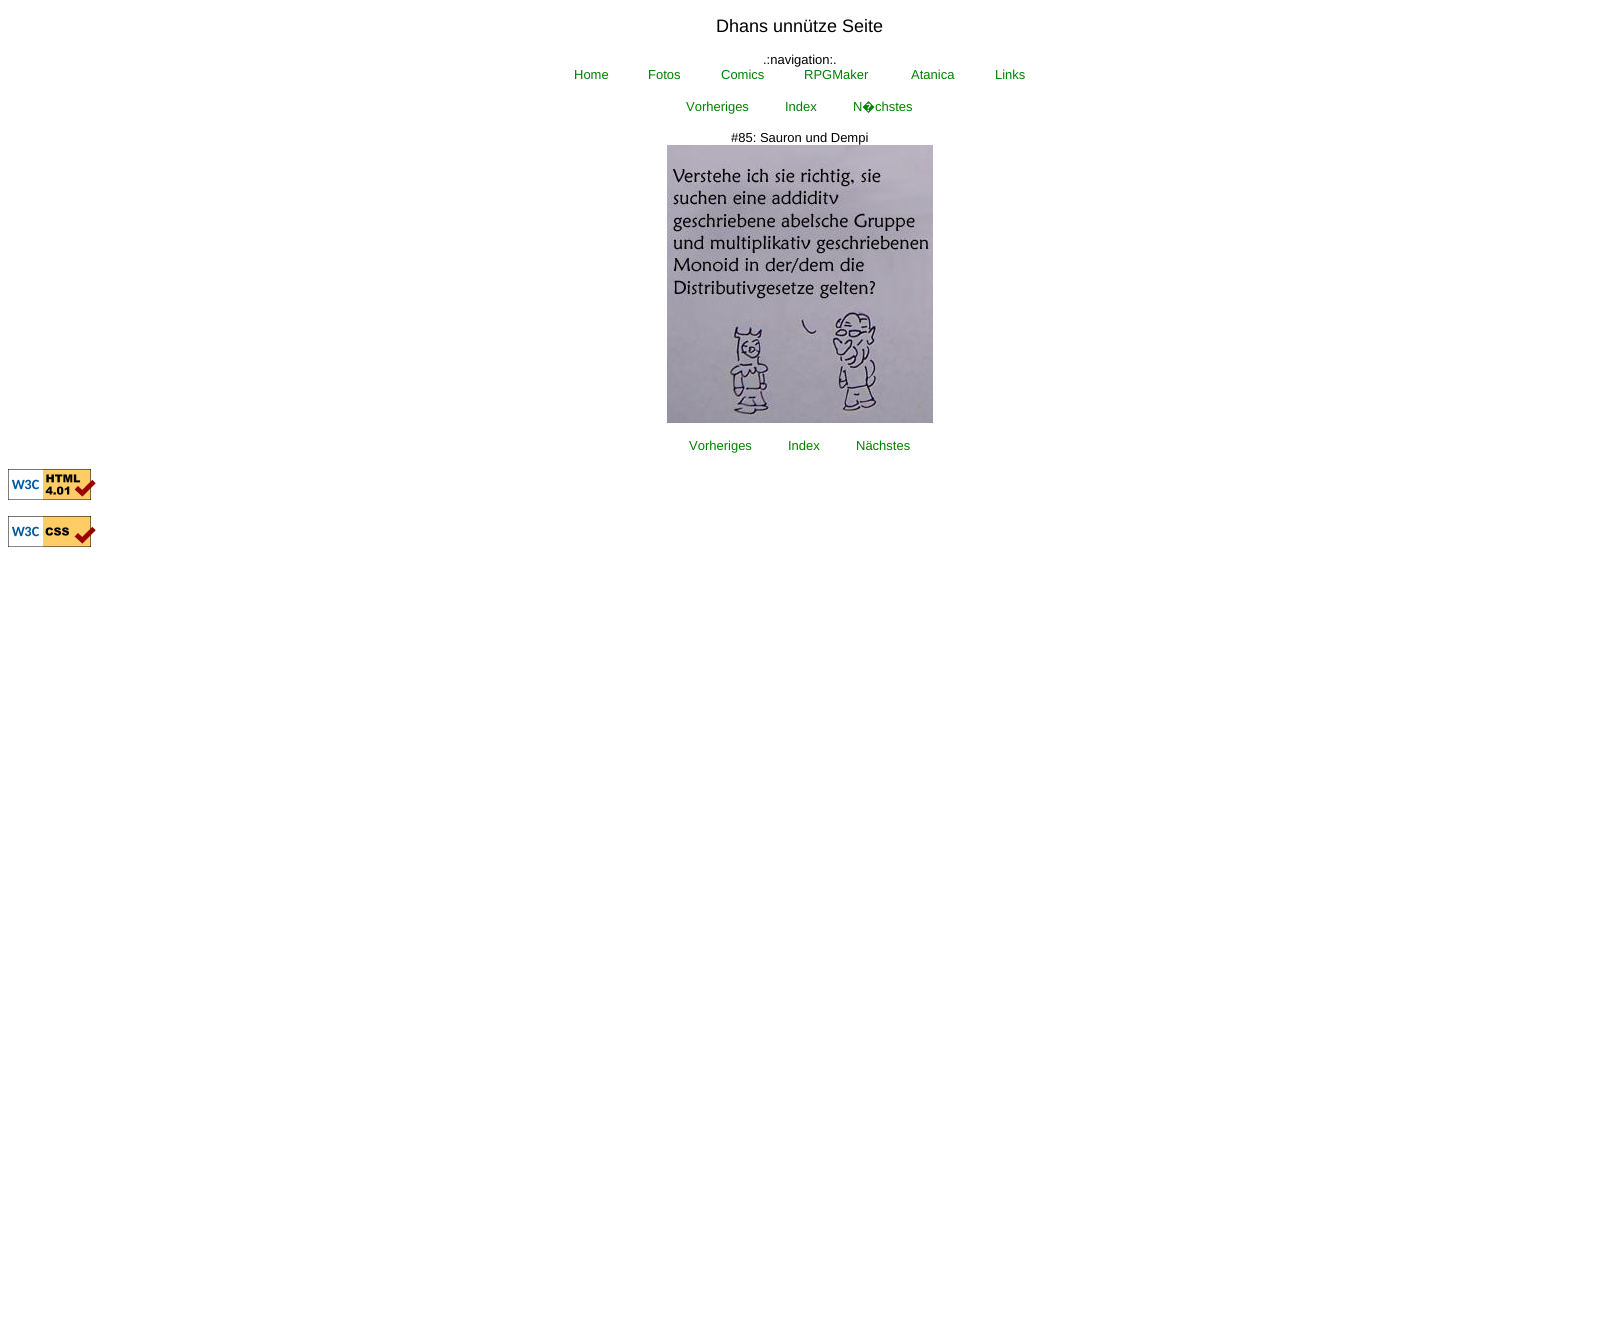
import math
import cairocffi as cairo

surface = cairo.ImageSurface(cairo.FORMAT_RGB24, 1599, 1344)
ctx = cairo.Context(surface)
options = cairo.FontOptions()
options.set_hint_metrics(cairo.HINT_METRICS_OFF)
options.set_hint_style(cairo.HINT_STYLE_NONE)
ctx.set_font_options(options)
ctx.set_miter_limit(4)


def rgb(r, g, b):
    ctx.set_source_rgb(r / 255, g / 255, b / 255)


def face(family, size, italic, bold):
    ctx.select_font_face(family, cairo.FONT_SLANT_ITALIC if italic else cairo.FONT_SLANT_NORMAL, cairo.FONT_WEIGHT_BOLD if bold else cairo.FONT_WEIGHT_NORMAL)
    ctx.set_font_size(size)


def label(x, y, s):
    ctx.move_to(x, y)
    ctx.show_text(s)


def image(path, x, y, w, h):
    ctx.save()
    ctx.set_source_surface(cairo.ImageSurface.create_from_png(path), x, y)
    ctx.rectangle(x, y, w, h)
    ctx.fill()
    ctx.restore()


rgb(255, 255, 255)
ctx.paint()
face('Liberation Sans', 18, 0, 0)
rgb(0, 0, 0)
label(716, 32, 'Dhans unnütze Seite')
face('Liberation Sans', 13, 0, 0)
label(763, 64, '.:navigation:.')
rgb(0, 128, 0)
label(574, 79, 'Home')
label(648, 79, 'Fotos')
label(721, 79, 'Comics')
label(804, 79, 'RPGMaker')
label(911, 79, 'Atanica')
label(995, 79, 'Links')
label(686, 111, 'Vorheriges')
label(785, 111, 'Index')
label(853, 111, 'N')
face('Noto Sans', 13, 0, 0)
label(862, 111, '�')
face('Liberation Sans', 13, 0, 0)
label(875, 111, 'chstes')
rgb(0, 0, 0)
label(731, 142, '#85: Sauron und Dempi')
image('image0.png', 667, 145, 266, 278)
rgb(0, 128, 0)
label(689, 450, 'Vorheriges')
label(788, 450, 'Index')
label(856, 450, 'Nächstes')
image('image1.png', 8, 469, 88, 31)
image('image2.png', 8, 516, 88, 31)
surface.write_to_png('render.png')
